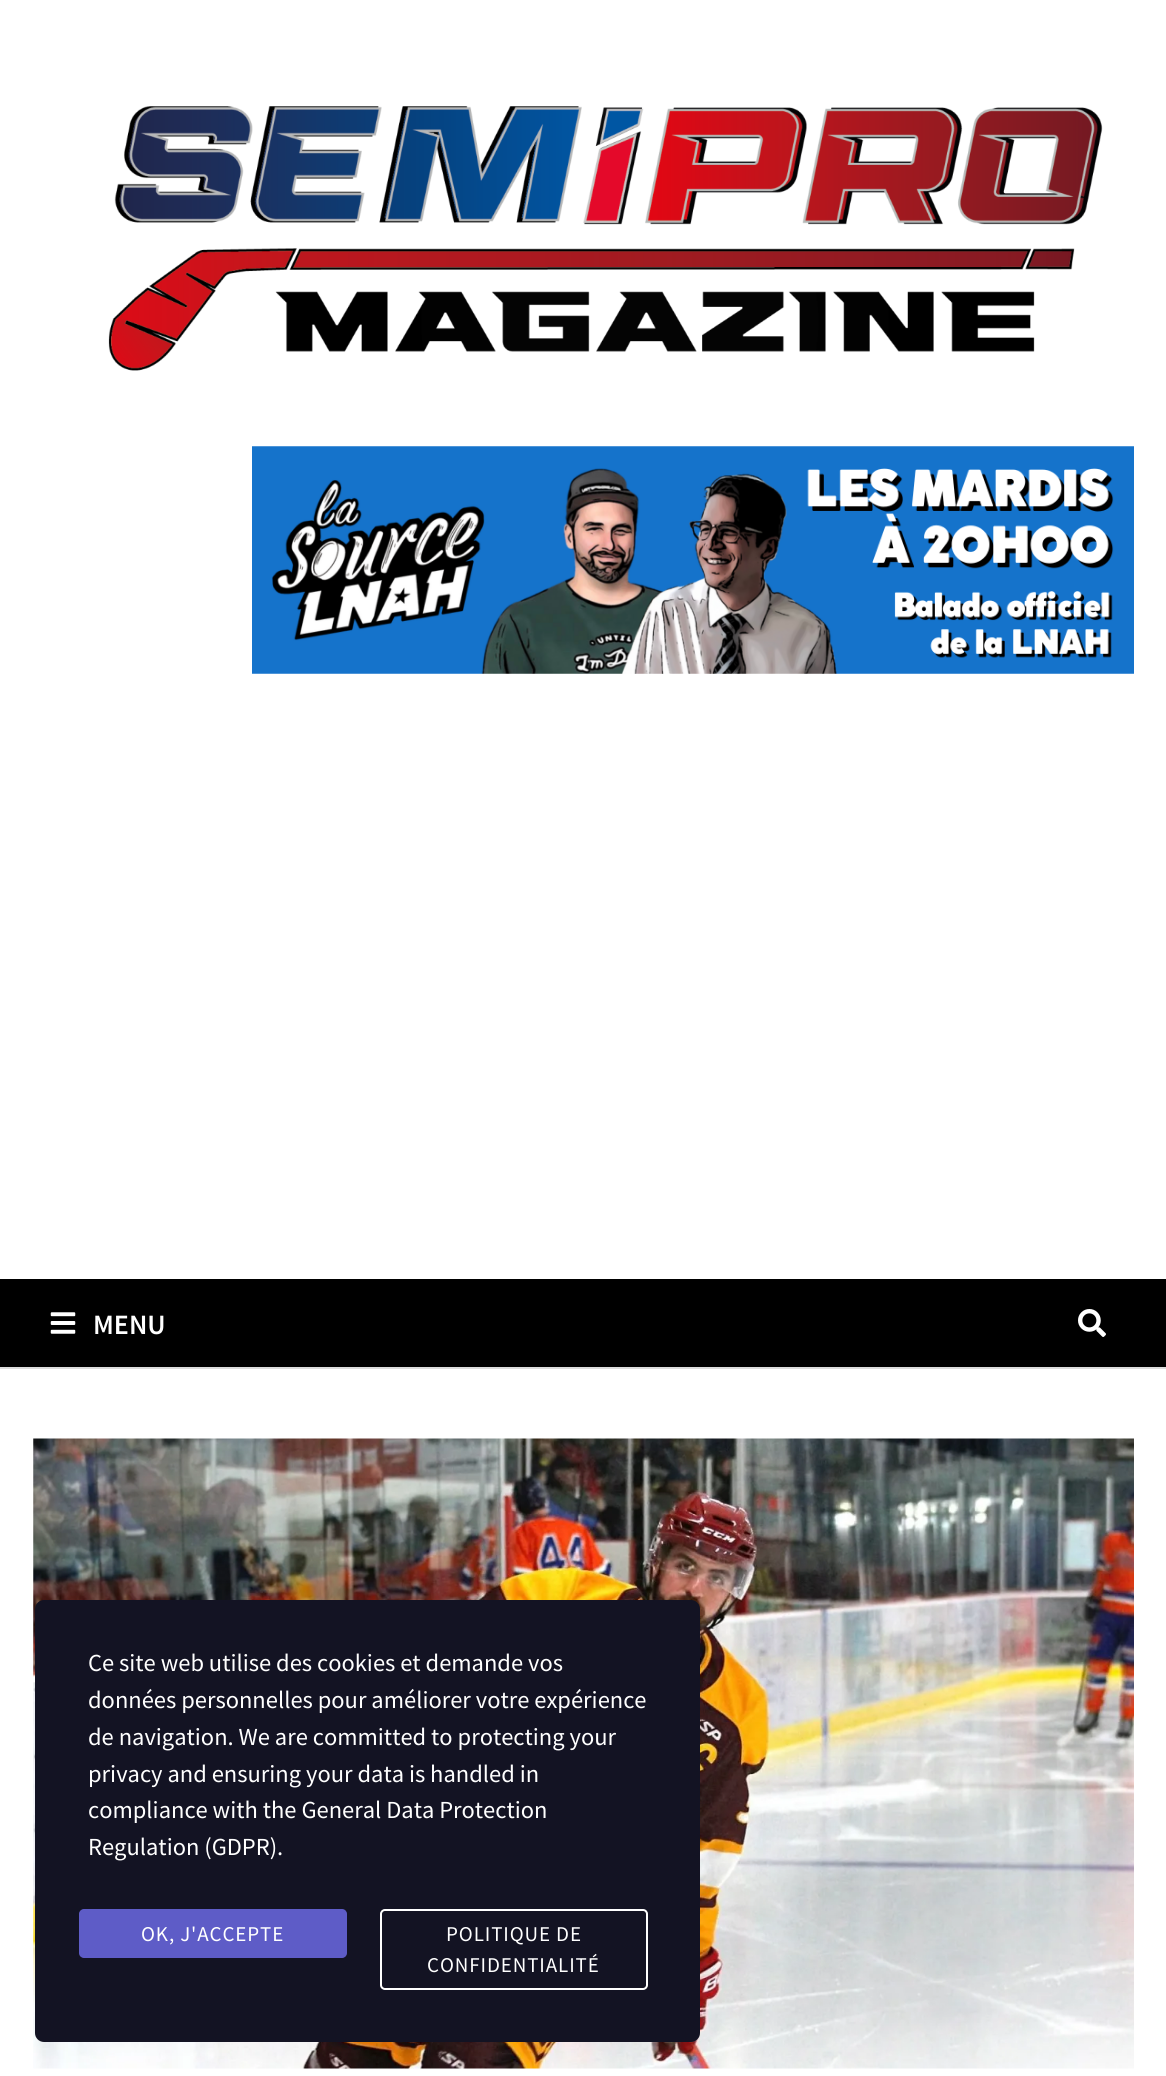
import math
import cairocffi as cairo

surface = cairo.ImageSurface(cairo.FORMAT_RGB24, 1166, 2076)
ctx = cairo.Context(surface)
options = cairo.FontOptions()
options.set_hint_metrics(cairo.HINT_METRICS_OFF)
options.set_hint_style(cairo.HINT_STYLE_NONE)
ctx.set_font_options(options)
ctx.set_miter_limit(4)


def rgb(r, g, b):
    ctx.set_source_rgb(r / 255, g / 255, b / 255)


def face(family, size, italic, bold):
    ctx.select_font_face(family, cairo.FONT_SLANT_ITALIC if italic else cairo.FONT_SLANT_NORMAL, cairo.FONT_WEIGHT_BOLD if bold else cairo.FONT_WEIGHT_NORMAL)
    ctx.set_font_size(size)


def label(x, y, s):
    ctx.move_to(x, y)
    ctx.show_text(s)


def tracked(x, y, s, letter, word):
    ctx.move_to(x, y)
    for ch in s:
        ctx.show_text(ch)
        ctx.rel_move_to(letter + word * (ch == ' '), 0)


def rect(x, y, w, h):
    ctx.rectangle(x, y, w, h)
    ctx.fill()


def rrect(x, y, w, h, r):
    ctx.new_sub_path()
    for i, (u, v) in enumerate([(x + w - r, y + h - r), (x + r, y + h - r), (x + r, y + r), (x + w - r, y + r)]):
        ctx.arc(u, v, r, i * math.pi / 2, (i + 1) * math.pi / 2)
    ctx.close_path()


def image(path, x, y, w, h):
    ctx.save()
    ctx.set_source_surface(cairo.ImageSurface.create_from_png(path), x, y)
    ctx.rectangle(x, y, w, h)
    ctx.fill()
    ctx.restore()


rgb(255, 255, 255)
ctx.paint()
rgb(221, 221, 221)
rect(0, 1367, 1166, 2)
image('image0.png', 108, 106, 995, 265)
image('image1.png', 252, 446, 882, 228)
rgb(0, 0, 0)
rect(0, 1279, 1166, 88)
image('image2.png', 50, 1312, 26, 22)
face('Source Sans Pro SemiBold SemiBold', 28, 0, 0)
rgb(255, 255, 255)
label(93, 1334, 'MENU')
image('image3.png', 1078, 1309, 28, 28)
image('image4.png', 33, 1438, 1101, 631)
rgb(19, 19, 35)
rrect(35, 1600, 665, 442, 9)
ctx.fill()
face('Source Sans Pro', 24.5, 0, 0)
rgb(255, 255, 255)
label(88, 1671, 'Ce site web utilise des cookies et demande vos')
label(88, 1708, 'données personnelles pour améliorer votre expérience')
label(88, 1745, 'de navigation. We are committed to protecting your')
label(88, 1782, 'privacy and ensuring your data is handled in')
label(88, 1818, 'compliance with the General Data Protection')
label(88, 1855, 'Regulation (GDPR).')
rgb(94, 92, 199)
rrect(80, 1910, 266, 47, 4)
ctx.fill_preserve()
ctx.stroke()
face('Source Sans Pro', 21, 0, 0)
rgb(255, 255, 255)
tracked(141, 1941, 'OK, J\'ACCEPTE', 0.9, 0)
rrect(381, 1910, 266, 79, 4)
ctx.stroke()
tracked(446, 1941, 'POLITIQUE DE', 0.9, 0)
tracked(427, 1972, 'CONFIDENTIALITÉ', 0.9, 0)
surface.write_to_png('render.png')
